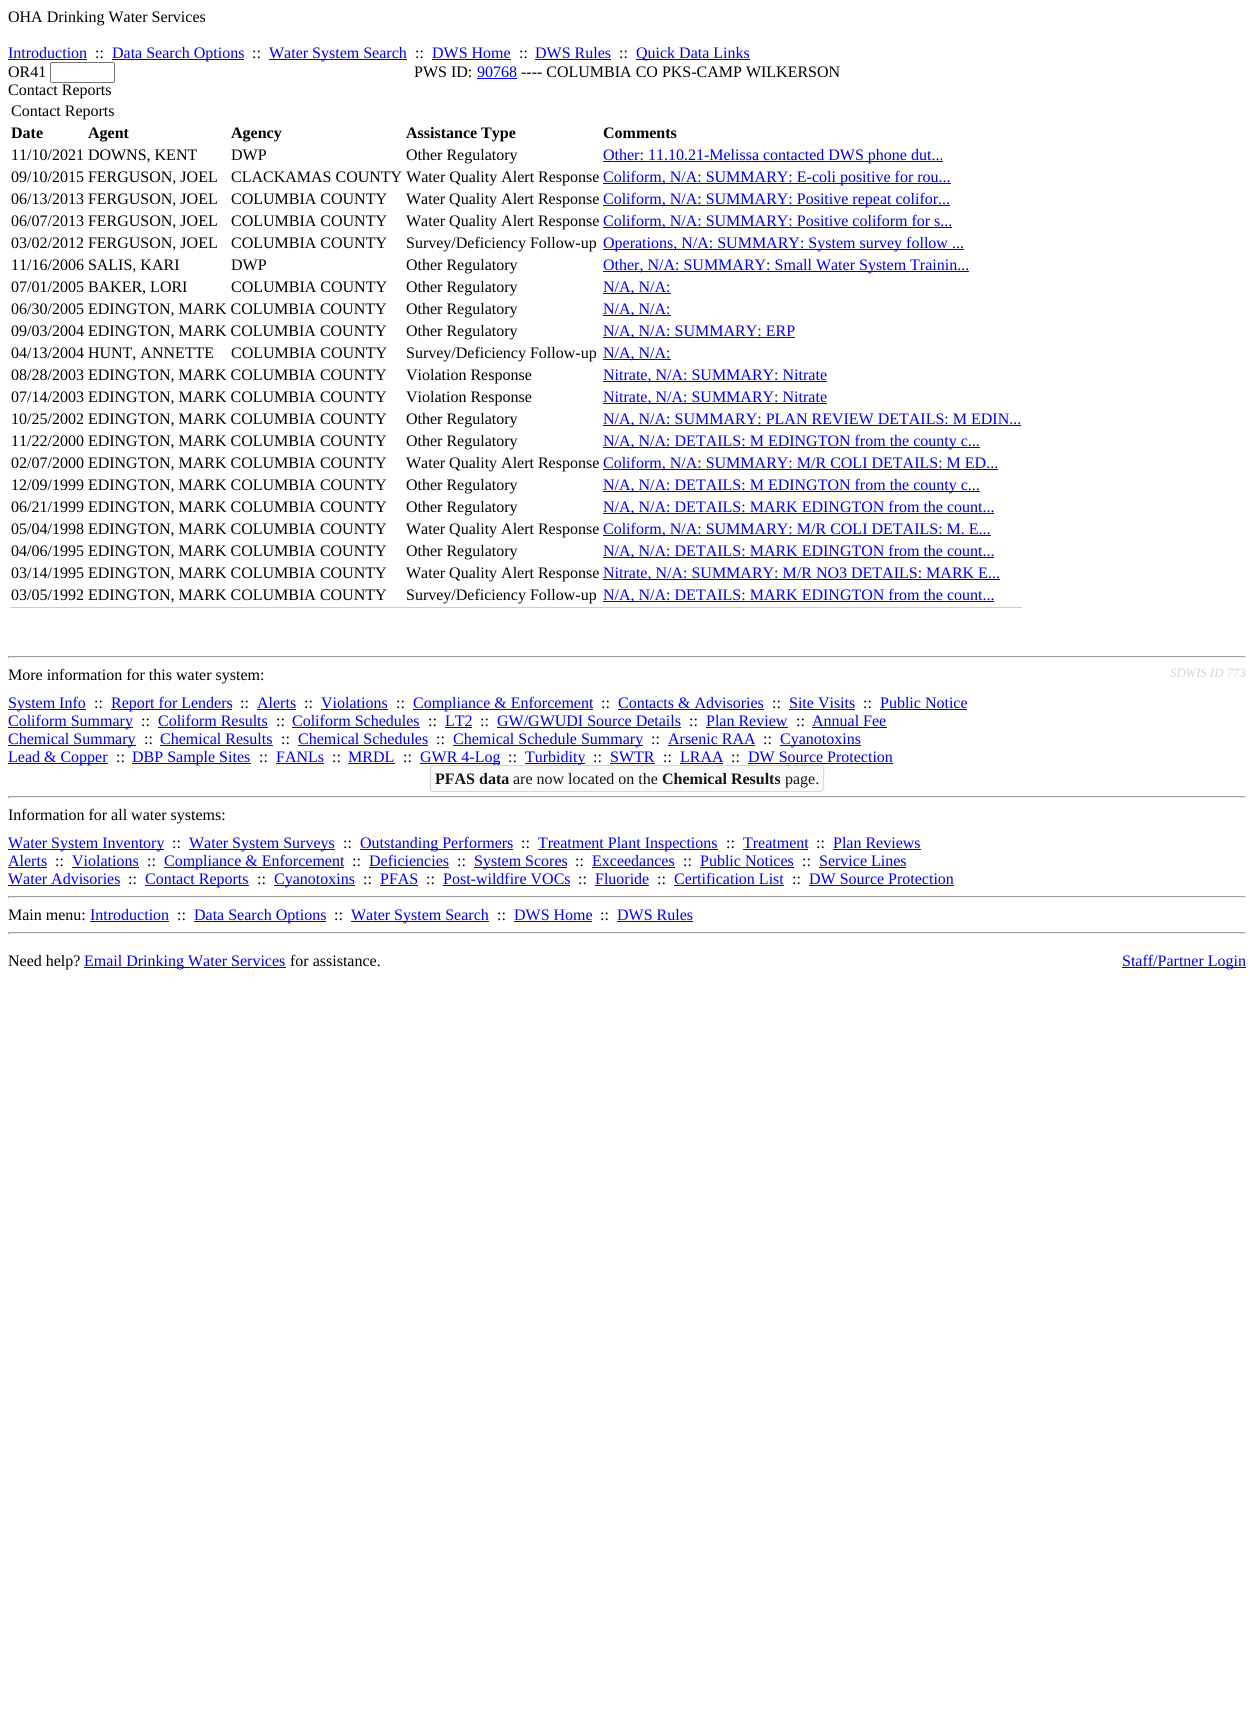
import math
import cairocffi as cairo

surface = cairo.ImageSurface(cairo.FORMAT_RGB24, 1254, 1711)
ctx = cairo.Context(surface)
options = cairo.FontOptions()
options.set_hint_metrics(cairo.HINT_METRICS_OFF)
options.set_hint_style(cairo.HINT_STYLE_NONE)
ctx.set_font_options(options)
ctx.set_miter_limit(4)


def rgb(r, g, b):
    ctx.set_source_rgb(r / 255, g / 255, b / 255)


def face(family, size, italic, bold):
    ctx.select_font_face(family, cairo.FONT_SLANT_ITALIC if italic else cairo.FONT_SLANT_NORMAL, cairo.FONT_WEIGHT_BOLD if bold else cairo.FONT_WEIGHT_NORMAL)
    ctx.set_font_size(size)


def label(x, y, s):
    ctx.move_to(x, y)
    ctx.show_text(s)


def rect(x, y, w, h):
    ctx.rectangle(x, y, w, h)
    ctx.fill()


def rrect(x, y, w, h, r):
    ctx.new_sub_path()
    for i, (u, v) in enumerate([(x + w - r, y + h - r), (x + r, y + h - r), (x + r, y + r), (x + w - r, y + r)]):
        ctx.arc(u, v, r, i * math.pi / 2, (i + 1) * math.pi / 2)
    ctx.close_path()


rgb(255, 255, 255)
ctx.paint()
face('Liberation Serif', 16, 0, 0)
rgb(0, 0, 0)
label(8, 22, 'OHA Drinking Water Services')
rgb(0, 0, 238)
label(8, 58, 'Introduction')
rect(8, 59, 79, 1)
rgb(0, 0, 0)
label(95, 58, '::')
rgb(0, 0, 238)
rect(112, 59, 132, 1)
label(112, 58, 'Data Search Options')
rgb(0, 0, 0)
label(252, 58, '::')
rgb(0, 0, 238)
rect(269, 59, 138, 1)
label(269, 58, 'Water System Search')
rgb(0, 0, 0)
label(415, 58, '::')
rgb(0, 0, 238)
label(432, 58, 'DWS Home')
rect(432, 59, 79, 1)
rgb(0, 0, 0)
label(519, 58, '::')
rgb(0, 0, 238)
label(535, 58, 'DWS Rules')
rect(535, 59, 76, 1)
rgb(0, 0, 0)
label(619, 58, '::')
rgb(0, 0, 238)
rect(636, 59, 114, 1)
label(636, 58, 'Quick Data Links')
rgb(0, 0, 0)
label(8, 77, 'OR41')
rrect(50.5, 62.5, 64, 20, 1.5)
rgb(118, 118, 118)
ctx.set_line_width(1)
ctx.stroke()
rgb(0, 0, 0)
label(414, 77, 'PWS ID:')
rgb(0, 0, 238)
label(477, 77, '90768')
rect(477, 78, 40, 1)
rgb(0, 0, 0)
label(521, 77, '---- COLUMBIA CO PKS-CAMP WILKERSON')
label(8, 95, 'Contact Reports')
label(11, 116, 'Contact Reports')
face('Liberation Serif', 16, 0, 1)
label(11, 138, 'Date')
label(88, 138, 'Agent')
label(231, 138, 'Agency')
label(406, 138, 'Assistance Type')
label(603, 138, 'Comments')
face('Liberation Serif', 16, 0, 0)
label(11, 160, '11/10/2021 DOWNS, KENT')
label(231, 160, 'DWP')
label(406, 160, 'Other Regulatory')
rgb(0, 0, 238)
rect(603, 161, 340, 1)
label(603, 160, 'Other: 11.10.21-Melissa contacted DWS phone dut...')
rgb(0, 0, 0)
label(11, 182, '09/10/2015 FERGUSON, JOEL')
label(231, 182, 'CLACKAMAS COUNTY Water Quality Alert Response')
rgb(0, 0, 238)
rect(603, 183, 348, 1)
label(603, 182, 'Coliform, N/A: SUMMARY: E-coli positive for rou...')
rgb(0, 0, 0)
label(11, 204, '06/13/2013 FERGUSON, JOEL')
label(231, 204, 'COLUMBIA COUNTY')
label(406, 204, 'Water Quality Alert Response')
rgb(0, 0, 238)
rect(603, 205, 347, 1)
label(603, 204, 'Coliform, N/A: SUMMARY: Positive repeat colifor...')
rgb(0, 0, 0)
label(11, 226, '06/07/2013 FERGUSON, JOEL')
label(231, 226, 'COLUMBIA COUNTY')
label(406, 226, 'Water Quality Alert Response')
rgb(0, 0, 238)
rect(603, 227, 349, 1)
label(603, 226, 'Coliform, N/A: SUMMARY: Positive coliform for s...')
rgb(0, 0, 0)
label(11, 248, '03/02/2012 FERGUSON, JOEL')
label(231, 248, 'COLUMBIA COUNTY')
label(406, 248, 'Survey/Deficiency Follow-up')
rgb(0, 0, 238)
rect(603, 249, 361, 1)
label(603, 248, 'Operations, N/A: SUMMARY: System survey follow ...')
rgb(0, 0, 0)
label(11, 270, '11/16/2006 SALIS, KARI')
label(231, 270, 'DWP')
label(406, 270, 'Other Regulatory')
rgb(0, 0, 238)
rect(603, 271, 366, 1)
label(603, 270, 'Other, N/A: SUMMARY: Small Water System Trainin...')
rgb(0, 0, 0)
label(11, 292, '07/01/2005 BAKER, LORI')
label(231, 292, 'COLUMBIA COUNTY')
label(406, 292, 'Other Regulatory')
rgb(0, 0, 238)
rect(603, 293, 68, 1)
label(603, 292, 'N/A, N/A:')
rgb(0, 0, 0)
label(11, 314, '06/30/2005 EDINGTON, MARK COLUMBIA COUNTY')
label(406, 314, 'Other Regulatory')
rgb(0, 0, 238)
rect(603, 315, 68, 1)
label(603, 314, 'N/A, N/A:')
rgb(0, 0, 0)
label(11, 336, '09/03/2004 EDINGTON, MARK COLUMBIA COUNTY')
label(406, 336, 'Other Regulatory')
rgb(0, 0, 238)
rect(603, 337, 192, 1)
label(603, 336, 'N/A, N/A: SUMMARY: ERP')
rgb(0, 0, 0)
label(11, 358, '04/13/2004 HUNT, ANNETTE')
label(231, 358, 'COLUMBIA COUNTY')
label(406, 358, 'Survey/Deficiency Follow-up')
rgb(0, 0, 238)
rect(603, 359, 68, 1)
label(603, 358, 'N/A, N/A:')
rgb(0, 0, 0)
label(11, 380, '08/28/2003 EDINGTON, MARK COLUMBIA COUNTY')
label(406, 380, 'Violation Response')
rgb(0, 0, 238)
rect(603, 381, 224, 1)
label(603, 380, 'Nitrate, N/A: SUMMARY: Nitrate')
rgb(0, 0, 0)
label(11, 402, '07/14/2003 EDINGTON, MARK COLUMBIA COUNTY')
label(406, 402, 'Violation Response')
rgb(0, 0, 238)
rect(603, 403, 224, 1)
label(603, 402, 'Nitrate, N/A: SUMMARY: Nitrate')
rgb(0, 0, 0)
label(11, 424, '10/25/2002 EDINGTON, MARK COLUMBIA COUNTY')
label(406, 424, 'Other Regulatory')
rgb(0, 0, 238)
rect(603, 425, 418, 1)
label(603, 424, 'N/A, N/A: SUMMARY: PLAN REVIEW DETAILS: M EDIN...')
rgb(0, 0, 0)
label(11, 446, '11/22/2000 EDINGTON, MARK COLUMBIA COUNTY')
label(406, 446, 'Other Regulatory')
rgb(0, 0, 238)
rect(603, 447, 377, 1)
label(603, 446, 'N/A, N/A: DETAILS: M EDINGTON from the county c...')
rgb(0, 0, 0)
label(11, 468, '02/07/2000 EDINGTON, MARK COLUMBIA COUNTY')
label(406, 468, 'Water Quality Alert Response')
rgb(0, 0, 238)
rect(603, 469, 395, 1)
label(603, 468, 'Coliform, N/A: SUMMARY: M/R COLI DETAILS: M ED...')
rgb(0, 0, 0)
label(11, 490, '12/09/1999 EDINGTON, MARK COLUMBIA COUNTY')
label(406, 490, 'Other Regulatory')
rgb(0, 0, 238)
rect(603, 491, 377, 1)
label(603, 490, 'N/A, N/A: DETAILS: M EDINGTON from the county c...')
rgb(0, 0, 0)
label(11, 512, '06/21/1999 EDINGTON, MARK COLUMBIA COUNTY')
label(406, 512, 'Other Regulatory')
rgb(0, 0, 238)
rect(603, 513, 391, 1)
label(603, 512, 'N/A, N/A: DETAILS: MARK EDINGTON from the count...')
rgb(0, 0, 0)
label(11, 534, '05/04/1998 EDINGTON, MARK COLUMBIA COUNTY')
label(406, 534, 'Water Quality Alert Response')
rgb(0, 0, 238)
rect(603, 535, 388, 1)
label(603, 534, 'Coliform, N/A: SUMMARY: M/R COLI DETAILS: M. E...')
rgb(0, 0, 0)
label(11, 556, '04/06/1995 EDINGTON, MARK COLUMBIA COUNTY')
label(406, 556, 'Other Regulatory')
rgb(0, 0, 238)
rect(603, 557, 391, 1)
label(603, 556, 'N/A, N/A: DETAILS: MARK EDINGTON from the count...')
rgb(0, 0, 0)
label(11, 578, '03/14/1995 EDINGTON, MARK COLUMBIA COUNTY')
label(406, 578, 'Water Quality Alert Response')
rgb(0, 0, 238)
rect(603, 579, 397, 1)
label(603, 578, 'Nitrate, N/A: SUMMARY: M/R NO3 DETAILS: MARK E...')
rgb(0, 0, 0)
label(11, 600, '03/05/1992 EDINGTON, MARK COLUMBIA COUNTY')
label(406, 600, 'Survey/Deficiency Follow-up')
rgb(0, 0, 238)
rect(603, 601, 391, 1)
label(603, 600, 'N/A, N/A: DETAILS: MARK EDINGTON from the count...')
rgb(204, 204, 204)
rect(10, 607, 1012, 1)
rgb(159, 159, 159)
rect(8, 656, 1238, 1)
rgb(238, 238, 238)
rect(1245, 656, 1, 2)
rect(8, 657, 1238, 1)
rgb(159, 159, 159)
rect(8, 656, 1, 2)
rgb(0, 0, 0)
label(8, 680, 'More information for this water system:')
face('Liberation Serif', 12.75, 1, 0)
rgb(211, 211, 211)
label(1170, 677, 'SDWIS ID 773')
rgb(0, 0, 238)
rect(8, 709, 78, 1)
face('Liberation Serif', 16, 0, 0)
label(8, 708, 'System Info')
rgb(0, 0, 0)
label(94, 708, '::')
rgb(0, 0, 238)
rect(111, 709, 121, 1)
label(111, 708, 'Report for Lenders')
rgb(0, 0, 0)
label(240, 708, '::')
rgb(0, 0, 238)
label(257, 708, 'Alerts')
rect(257, 709, 39, 1)
rgb(0, 0, 0)
label(304, 708, '::')
rgb(0, 0, 238)
label(321, 708, 'Violations')
rect(321, 709, 67, 1)
rgb(0, 0, 0)
label(396, 708, '::')
rgb(0, 0, 238)
rect(413, 709, 180, 1)
label(413, 708, 'Compliance & Enforcement')
rgb(0, 0, 0)
label(601, 708, '::')
rgb(0, 0, 238)
label(618, 708, 'Contacts & Advisories')
rect(618, 709, 146, 1)
rgb(0, 0, 0)
label(772, 708, '::')
rgb(0, 0, 238)
label(789, 708, 'Site Visits')
rect(789, 709, 66, 1)
rgb(0, 0, 0)
label(863, 708, '::')
rgb(0, 0, 238)
label(880, 708, 'Public Notice')
rect(880, 709, 87, 1)
rect(8, 727, 125, 1)
label(8, 726, 'Coliform Summary')
rgb(0, 0, 0)
label(141, 726, '::')
rgb(0, 0, 238)
label(158, 726, 'Coliform Results')
rect(158, 727, 110, 1)
rgb(0, 0, 0)
label(276, 726, '::')
rgb(0, 0, 238)
label(292, 726, 'Coliform Schedules')
rect(292, 727, 128, 1)
rgb(0, 0, 0)
label(428, 726, '::')
rgb(0, 0, 238)
label(445, 726, 'LT2')
rect(445, 727, 27, 1)
rgb(0, 0, 0)
label(480, 726, '::')
rgb(0, 0, 238)
label(497, 726, 'GW/GWUDI Source Details')
rect(497, 727, 184, 1)
rgb(0, 0, 0)
label(689, 726, '::')
rgb(0, 0, 238)
label(706, 726, 'Plan Review')
rect(706, 727, 82, 1)
rgb(0, 0, 0)
label(796, 726, '::')
rgb(0, 0, 238)
label(812, 726, 'Annual Fee')
rect(812, 727, 75, 1)
rect(8, 745, 128, 1)
label(8, 744, 'Chemical Summary')
rgb(0, 0, 0)
label(144, 744, '::')
rgb(0, 0, 238)
label(160, 744, 'Chemical Results')
rect(160, 745, 113, 1)
rgb(0, 0, 0)
label(281, 744, '::')
rgb(0, 0, 238)
label(298, 744, 'Chemical Schedules')
rect(298, 745, 130, 1)
rgb(0, 0, 0)
label(436, 744, '::')
rgb(0, 0, 238)
rect(453, 745, 190, 1)
label(453, 744, 'Chemical Schedule Summary')
rgb(0, 0, 0)
label(651, 744, '::')
rgb(0, 0, 238)
label(668, 744, 'Arsenic RAA')
rect(668, 745, 87, 1)
rgb(0, 0, 0)
label(763, 744, '::')
rgb(0, 0, 238)
rect(780, 745, 81, 1)
label(780, 744, 'Cyanotoxins')
rect(8, 763, 100, 1)
label(8, 762, 'Lead & Copper')
rgb(0, 0, 0)
label(116, 762, '::')
rgb(0, 0, 238)
rect(132, 763, 119, 1)
label(132, 762, 'DBP Sample Sites')
rgb(0, 0, 0)
label(259, 762, '::')
rgb(0, 0, 238)
label(276, 762, 'FANLs')
rect(276, 763, 48, 1)
rgb(0, 0, 0)
label(332, 762, '::')
rgb(0, 0, 238)
label(348, 762, 'MRDL')
rect(348, 763, 47, 1)
rgb(0, 0, 0)
label(403, 762, '::')
rgb(0, 0, 238)
rect(420, 763, 80, 1)
label(420, 762, 'GWR 4-Log')
rgb(0, 0, 0)
label(508, 762, '::')
rgb(0, 0, 238)
rect(525, 763, 60, 1)
label(525, 762, 'Turbidity')
rgb(0, 0, 0)
label(593, 762, '::')
rgb(0, 0, 238)
label(610, 762, 'SWTR')
rect(610, 763, 45, 1)
rgb(0, 0, 0)
label(663, 762, '::')
rgb(0, 0, 238)
label(680, 762, 'LRAA')
rect(680, 763, 43, 1)
rgb(0, 0, 0)
label(731, 762, '::')
rgb(0, 0, 238)
label(748, 762, 'DW Source Protection')
rect(748, 763, 145, 1)
rgb(250, 250, 250)
ctx.new_path()
ctx.move_to(433, 765)
ctx.line_to(509, 765)
ctx.line_to(509, 792)
ctx.line_to(433, 792)
ctx.curve_to(431.5, 792, 430, 790.5, 430, 789)
ctx.line_to(430, 768)
ctx.curve_to(430, 766.5, 431.5, 765, 433, 765)
ctx.close_path()
ctx.fill()
rgb(211, 211, 211)
ctx.set_fill_rule(cairo.FILL_RULE_EVEN_ODD)
ctx.new_path()
ctx.move_to(433, 765)
ctx.line_to(509, 765)
ctx.line_to(509, 792)
ctx.line_to(433, 792)
ctx.curve_to(431, 792, 430, 791, 430, 789)
ctx.line_to(430, 768)
ctx.curve_to(430, 766, 431, 765, 433, 765)
ctx.close_path()
ctx.move_to(433, 766)
ctx.line_to(509, 766)
ctx.line_to(509, 791)
ctx.line_to(433, 791)
ctx.curve_to(432, 791, 431, 790, 431, 789)
ctx.line_to(431, 768)
ctx.curve_to(431, 767, 432, 766, 433, 766)
ctx.close_path()
ctx.fill()
rgb(250, 250, 250)
rect(509, 766, 272, 25)
face('Liberation Serif', 16, 0, 1)
rgb(21, 21, 21)
label(435, 784, 'PFAS data')
rgb(211, 211, 211)
rect(509, 765, 272, 1)
face('Liberation Serif', 16, 0, 0)
rgb(21, 21, 21)
label(513, 784, 'are now located on the')
face('Liberation Serif', 16, 0, 1)
label(662, 784, 'Chemical Results')
rgb(250, 250, 250)
ctx.new_path()
ctx.move_to(781, 765)
ctx.line_to(821, 765)
ctx.curve_to(822.5, 765, 824, 766.5, 824, 768)
ctx.line_to(824, 789)
ctx.curve_to(824, 790.5, 822.5, 792, 821, 792)
ctx.line_to(781, 792)
ctx.close_path()
ctx.fill()
rgb(211, 211, 211)
ctx.new_path()
ctx.move_to(781, 765)
ctx.line_to(814, 765)
ctx.curve_to(827, 765, 824, 766, 824, 778)
ctx.curve_to(824, 791, 827, 792, 814, 792)
ctx.line_to(781, 792)
ctx.close_path()
ctx.move_to(781, 766)
ctx.line_to(814, 766)
ctx.curve_to(826, 766, 823, 766, 823, 778)
ctx.curve_to(823, 791, 826, 791, 814, 791)
ctx.line_to(781, 791)
ctx.close_path()
ctx.fill()
face('Liberation Serif', 16, 0, 0)
rgb(21, 21, 21)
label(785, 784, 'page.')
rgb(211, 211, 211)
rect(509, 791, 272, 1)
rgb(159, 159, 159)
rect(8, 796, 1238, 1)
rgb(238, 238, 238)
rect(1245, 796, 1, 2)
rect(8, 797, 1238, 1)
rgb(159, 159, 159)
rect(8, 796, 1, 2)
rgb(0, 0, 0)
label(8, 820, 'Information for all water systems:')
rgb(0, 0, 238)
rect(8, 849, 156, 1)
label(8, 848, 'Water System Inventory')
rgb(0, 0, 0)
label(172, 848, '::')
rgb(0, 0, 238)
rect(189, 849, 146, 1)
label(189, 848, 'Water System Surveys')
rgb(0, 0, 0)
label(343, 848, '::')
rgb(0, 0, 238)
rect(360, 849, 153, 1)
label(360, 848, 'Outstanding Performers')
rgb(0, 0, 0)
label(521, 848, '::')
rgb(0, 0, 238)
rect(538, 849, 180, 1)
label(538, 848, 'Treatment Plant Inspections')
rgb(0, 0, 0)
label(726, 848, '::')
rgb(0, 0, 238)
label(743, 848, 'Treatment')
rect(743, 849, 65, 1)
rgb(0, 0, 0)
label(816, 848, '::')
rgb(0, 0, 238)
label(833, 848, 'Plan Reviews')
rect(833, 849, 88, 1)
label(8, 866, 'Alerts')
rect(8, 867, 39, 1)
rgb(0, 0, 0)
label(55, 866, '::')
rgb(0, 0, 238)
label(72, 866, 'Violations')
rect(72, 867, 67, 1)
rgb(0, 0, 0)
label(147, 866, '::')
rgb(0, 0, 238)
rect(164, 867, 180, 1)
label(164, 866, 'Compliance & Enforcement')
rgb(0, 0, 0)
label(352, 866, '::')
rgb(0, 0, 238)
label(369, 866, 'Deficiencies')
rect(369, 867, 80, 1)
rgb(0, 0, 0)
label(457, 866, '::')
rgb(0, 0, 238)
rect(474, 867, 93, 1)
label(474, 866, 'System Scores')
rgb(0, 0, 0)
label(575, 866, '::')
rgb(0, 0, 238)
label(592, 866, 'Exceedances')
rect(592, 867, 83, 1)
rgb(0, 0, 0)
label(683, 866, '::')
rgb(0, 0, 238)
label(700, 866, 'Public Notices')
rect(700, 867, 94, 1)
rgb(0, 0, 0)
label(802, 866, '::')
rgb(0, 0, 238)
label(819, 866, 'Service Lines')
rect(819, 867, 87, 1)
label(8, 884, 'Water Advisories')
rect(8, 885, 112, 1)
rgb(0, 0, 0)
label(128, 884, '::')
rgb(0, 0, 238)
rect(145, 885, 104, 1)
label(145, 884, 'Contact Reports')
rgb(0, 0, 0)
label(257, 884, '::')
rgb(0, 0, 238)
rect(274, 885, 81, 1)
label(274, 884, 'Cyanotoxins')
rgb(0, 0, 0)
label(363, 884, '::')
rgb(0, 0, 238)
label(380, 884, 'PFAS')
rect(380, 885, 38, 1)
rgb(0, 0, 0)
label(426, 884, '::')
rgb(0, 0, 238)
label(443, 884, 'Post-wildfire VOCs')
rect(443, 885, 127, 1)
rgb(0, 0, 0)
label(578, 884, '::')
rgb(0, 0, 238)
label(595, 884, 'Fluoride')
rect(595, 885, 54, 1)
rgb(0, 0, 0)
label(657, 884, '::')
rgb(0, 0, 238)
label(674, 884, 'Certification List')
rect(674, 885, 110, 1)
rgb(0, 0, 0)
label(792, 884, '::')
rgb(0, 0, 238)
label(809, 884, 'DW Source Protection')
rect(809, 885, 145, 1)
rgb(159, 159, 159)
rect(8, 896, 1238, 1)
rgb(238, 238, 238)
rect(1245, 896, 1, 2)
rect(8, 897, 1238, 1)
rgb(159, 159, 159)
rect(8, 896, 1, 2)
rgb(0, 0, 0)
label(8, 920, 'Main menu:')
rgb(0, 0, 238)
label(90, 920, 'Introduction')
rect(90, 921, 79, 1)
rgb(0, 0, 0)
label(177, 920, '::')
rgb(0, 0, 238)
rect(194, 921, 132, 1)
label(194, 920, 'Data Search Options')
rgb(0, 0, 0)
label(334, 920, '::')
rgb(0, 0, 238)
rect(351, 921, 138, 1)
label(351, 920, 'Water System Search')
rgb(0, 0, 0)
label(497, 920, '::')
rgb(0, 0, 238)
label(514, 920, 'DWS Home')
rect(514, 921, 78, 1)
rgb(0, 0, 0)
label(600, 920, '::')
rgb(0, 0, 238)
label(617, 920, 'DWS Rules')
rect(617, 921, 76, 1)
rgb(159, 159, 159)
rect(8, 932, 1238, 1)
rgb(238, 238, 238)
rect(1245, 932, 1, 2)
rect(8, 933, 1238, 1)
rgb(159, 159, 159)
rect(8, 932, 1, 2)
rgb(0, 0, 0)
label(8, 966, 'Need help?')
rgb(0, 0, 238)
rect(84, 967, 202, 1)
label(84, 966, 'Email Drinking Water Services')
rgb(0, 0, 0)
label(290, 966, 'for assistance.')
rgb(0, 0, 238)
rect(1122, 967, 124, 1)
label(1122, 966, 'Staff/Partner Login')
surface.write_to_png('render.png')
